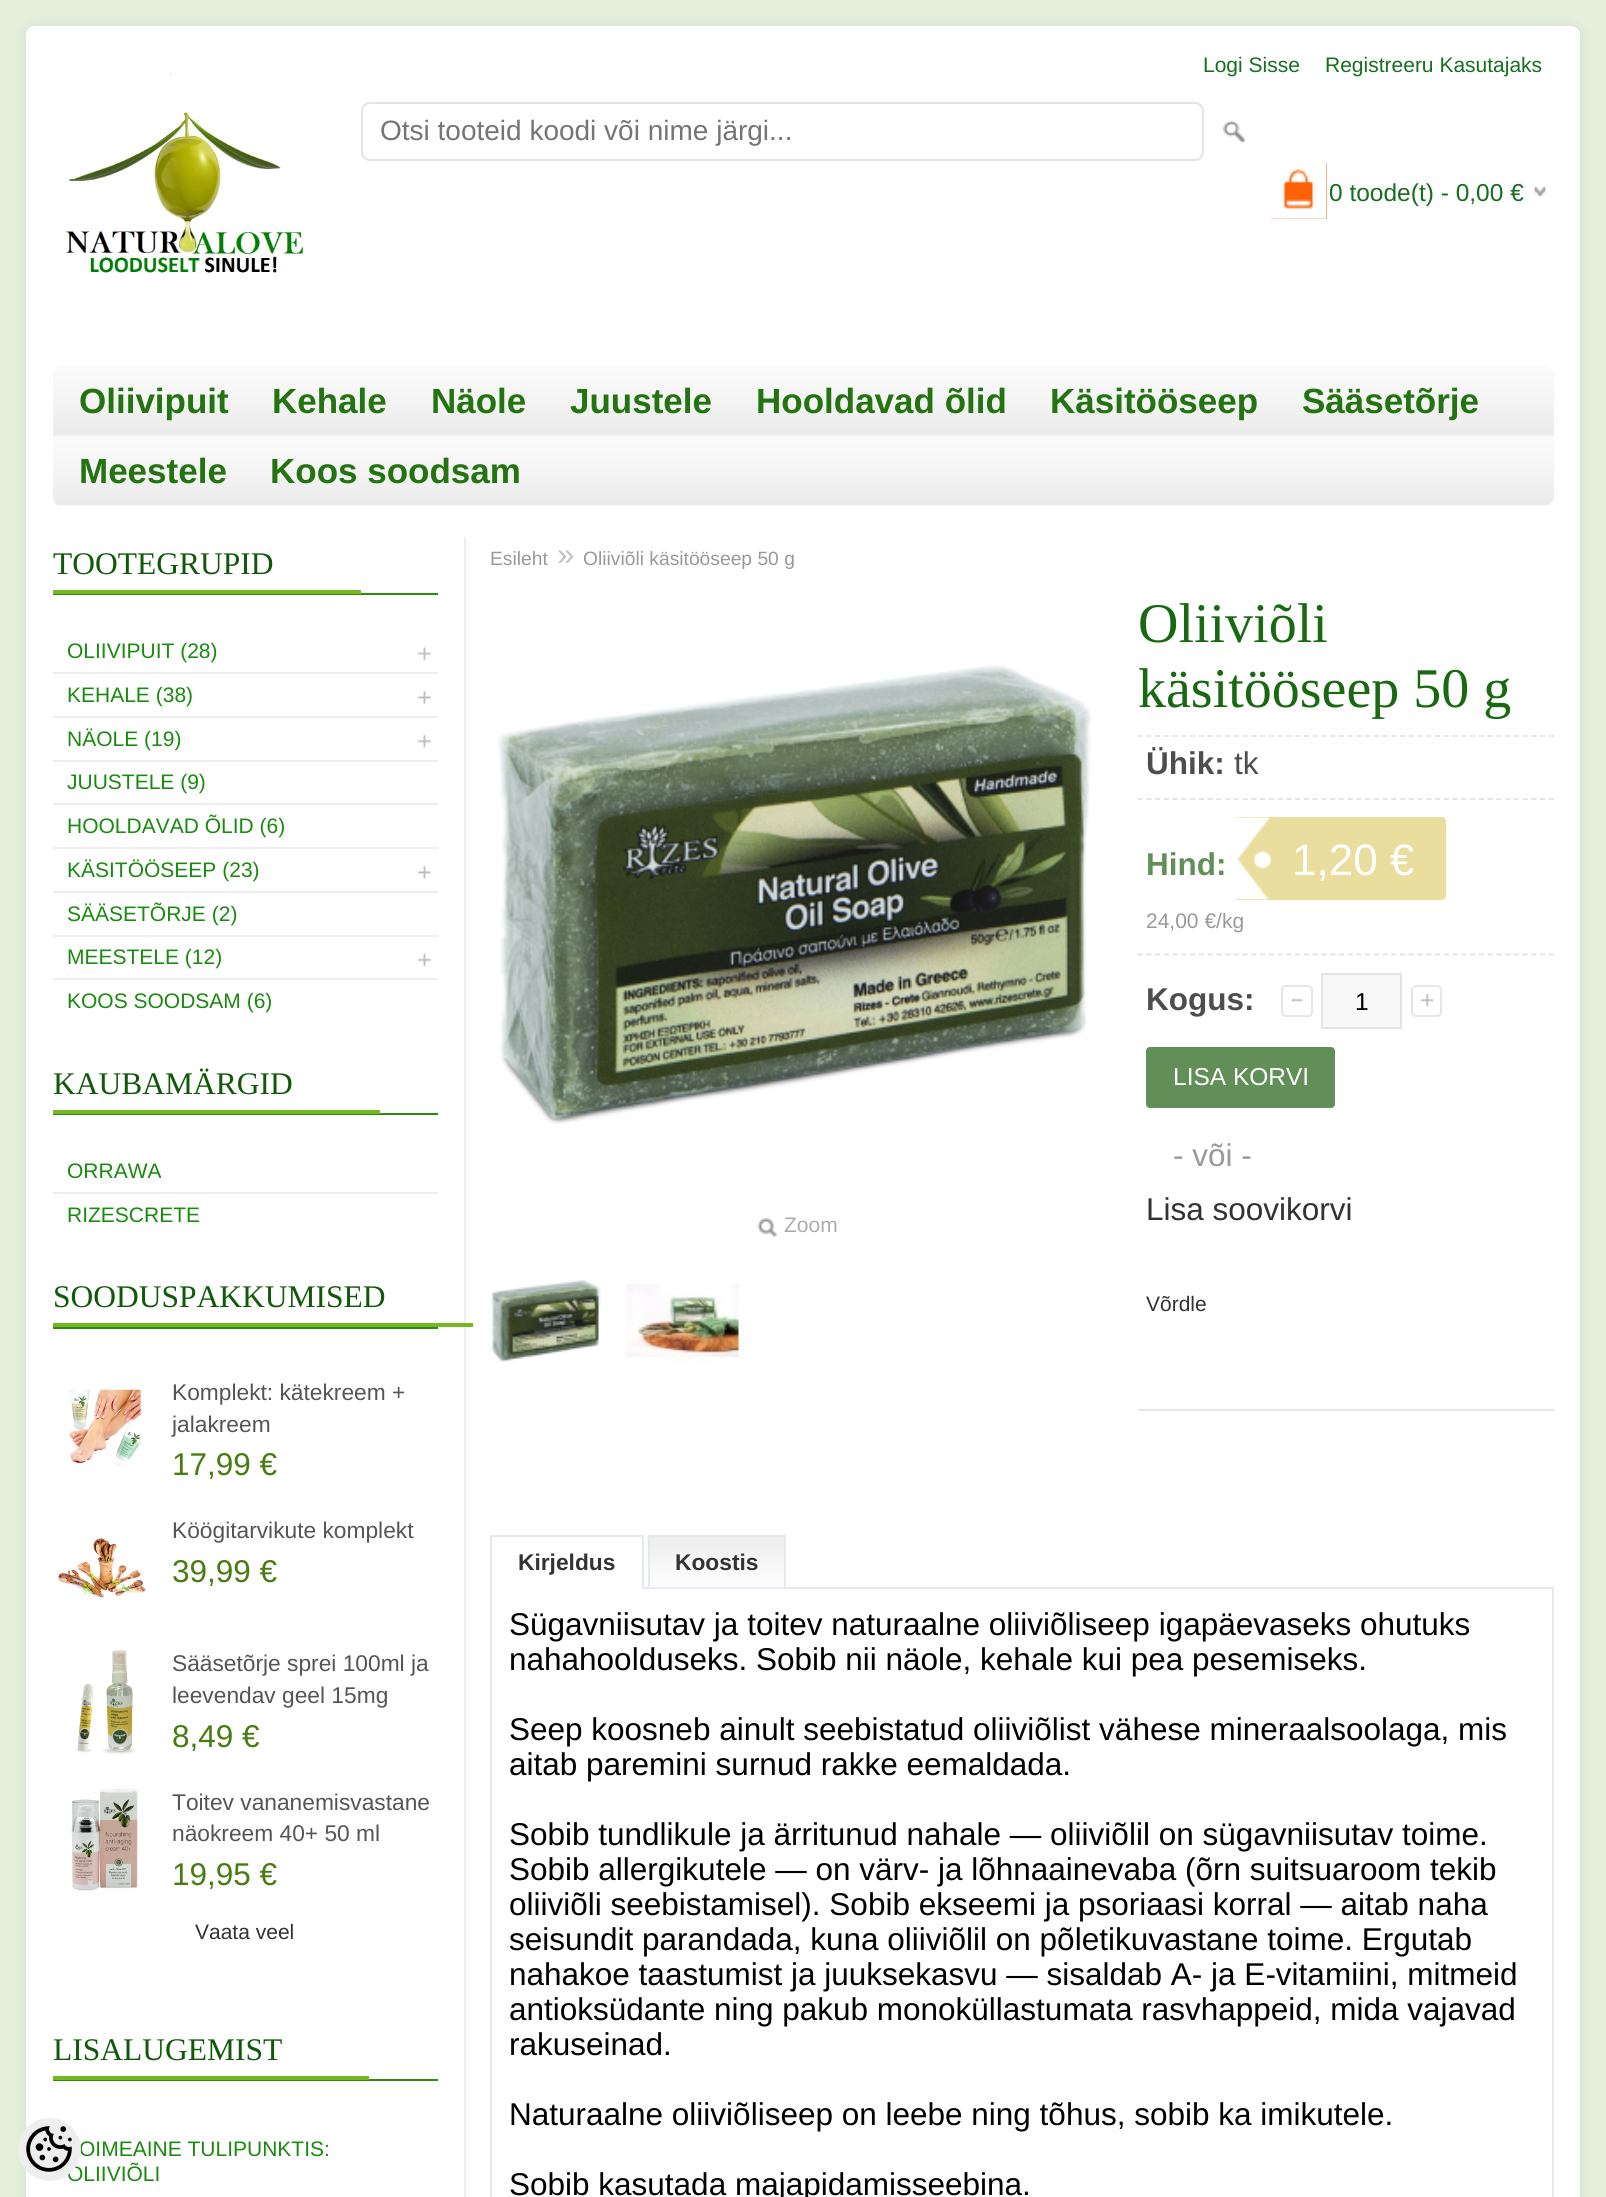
import math
import cairocffi as cairo

surface = cairo.ImageSurface(cairo.FORMAT_RGB24, 1606, 2197)
ctx = cairo.Context(surface)
options = cairo.FontOptions()
options.set_hint_metrics(cairo.HINT_METRICS_OFF)
options.set_hint_style(cairo.HINT_STYLE_NONE)
ctx.set_font_options(options)
ctx.set_miter_limit(4)


def rgb(r, g, b):
    ctx.set_source_rgb(r / 255, g / 255, b / 255)


def face(family, size, italic, bold):
    ctx.select_font_face(family, cairo.FONT_SLANT_ITALIC if italic else cairo.FONT_SLANT_NORMAL, cairo.FONT_WEIGHT_BOLD if bold else cairo.FONT_WEIGHT_NORMAL)
    ctx.set_font_size(size)


def label(x, y, s):
    ctx.move_to(x, y)
    ctx.show_text(s)


def rect(x, y, w, h):
    ctx.rectangle(x, y, w, h)
    ctx.fill()


def rrect(x, y, w, h, r):
    ctx.new_sub_path()
    for i, (u, v) in enumerate([(x + w - r, y + h - r), (x + r, y + h - r), (x + r, y + r), (x + w - r, y + r)]):
        ctx.arc(u, v, r, i * math.pi / 2, (i + 1) * math.pi / 2)
    ctx.close_path()


def soft_shadow(x, y, w, h, r, blur, alpha):
    ctx.push_group_with_content(cairo.CONTENT_ALPHA)
    ctx.set_operator(cairo.OPERATOR_SOURCE)
    for i in range(15, -16, -2):
        e = blur * i / 6
        if min(w, h) + 2 * e > 0:
            ctx.set_source_rgba(0, 0, 0, alpha * math.erfc((i - 1) / 8.5) / 2)
            rrect(x - e, y - e, w + 2 * e, h + 2 * e, max(0, min(r + e + blur * .6, min(w, h) / 2 + e)))
            ctx.fill()
    ctx.mask(ctx.pop_group())


def image(path, x, y, w, h):
    ctx.save()
    ctx.set_source_surface(cairo.ImageSurface.create_from_png(path), x, y)
    ctx.rectangle(x, y, w, h)
    ctx.fill()
    ctx.restore()


rgb(228, 240, 220)
ctx.paint()
rgb(0, 0, 0)
soft_shadow(26, 26, 1554, 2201, 9, 7, 0.08)
rgb(255, 255, 255)
ctx.new_path()
ctx.move_to(35, 26)
ctx.line_to(1571, 26)
ctx.curve_to(1576, 26, 1580, 30, 1580, 35)
ctx.line_to(1580, 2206)
ctx.line_to(26, 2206)
ctx.line_to(26, 35)
ctx.curve_to(26, 30, 30, 26, 35, 26)
ctx.close_path()
ctx.fill()
face('Liberation Sans', 21, 0, 0)
rgb(25, 138, 15)
label(79, 2156, 'OIMEAINE TULIPUNKTIS:')
label(67, 2181, 'OLIIVIÕLI')
rgb(238, 238, 238)
ctx.new_path()
ctx.arc(49.5, 2149.5, 31.5, 0, 2 * math.pi)
ctx.fill()
image('image0.png', 26, 2126, 46, 46)
rgb(22, 110, 31)
label(1203, 72, 'Logi Sisse')
label(1325, 72, 'Registreeru Kasutajaks')
image('image1.png', 64, 72, 240, 201)
rrect(362, 103, 841, 57, 8)
rgb(228, 228, 228)
ctx.stroke()
face('Liberation Sans', 28, 0, 0)
rgb(117, 117, 117)
label(380, 140, 'Otsi tooteid koodi või nime järgi...')
image('image2.png', 1223, 120, 23, 23)
rgb(255, 97, 8)
rect(1271, 163, 56, 56)
image('image3.png', 1271, 163, 56, 56)
image('image4.png', 1534, 187, 12, 9)
face('Liberation Sans', 24.5, 0, 0)
rgb(22, 110, 31)
label(1329, 201, '0 toode(t) - 0,00 €')
image('image5.png', 53, 366, 1501, 140)
face('Liberation Sans', 35, 0, 1)
rgb(36, 115, 17)
label(79, 413, 'Oliivipuit')
label(272, 413, 'Kehale')
label(431, 413, 'Näole')
label(570, 413, 'Juustele')
label(756, 413, 'Hooldavad õlid')
label(1050, 413, 'Käsitööseep')
label(1302, 413, 'Sääsetõrje')
label(79, 483, 'Meestele')
label(270, 483, 'Koos soodsam')
rgb(238, 238, 238)
rect(464, 537, 2, 1660)
rgb(46, 140, 13)
rect(53, 593, 385, 2)
rgb(118, 184, 35)
rect(53, 590, 308, 4)
face('Liberation Serif', 31.5, 0, 0)
rgb(15, 89, 8)
label(53, 574, 'TOOTEGRUPID')
face('Liberation Sans', 21, 0, 0)
rgb(25, 138, 15)
label(67, 658, 'OLIIVIPUIT (28)')
image('image6.png', 417, 647, 14, 14)
rgb(238, 238, 238)
rect(53, 672, 385, 2)
rgb(25, 138, 15)
label(67, 702, 'KEHALE (38)')
image('image7.png', 417, 690, 14, 14)
rgb(238, 238, 238)
rect(53, 716, 385, 2)
rgb(25, 138, 15)
label(67, 746, 'NÄOLE (19)')
image('image8.png', 417, 734, 14, 14)
rgb(238, 238, 238)
rect(53, 760, 385, 2)
rgb(25, 138, 15)
label(67, 789, 'JUUSTELE (9)')
rgb(238, 238, 238)
rect(53, 803, 385, 2)
rgb(25, 138, 15)
label(67, 833, 'HOOLDAVAD ÕLID (6)')
rgb(238, 238, 238)
rect(53, 847, 385, 2)
rgb(25, 138, 15)
label(67, 877, 'KÄSITÖÖSEEP (23)')
image('image7.png', 417, 865, 14, 14)
rgb(238, 238, 238)
rect(53, 891, 385, 2)
rgb(25, 138, 15)
label(67, 921, 'SÄÄSETÕRJE (2)')
rgb(238, 238, 238)
rect(53, 935, 385, 2)
rgb(25, 138, 15)
label(67, 964, 'MEESTELE (12)')
image('image9.png', 417, 953, 14, 14)
rgb(238, 238, 238)
rect(53, 978, 385, 2)
rgb(25, 138, 15)
label(67, 1008, 'KOOS SOODSAM (6)')
rgb(46, 140, 13)
rect(53, 1113, 385, 2)
rgb(118, 184, 35)
rect(53, 1110, 327, 4)
face('Liberation Serif', 31.5, 0, 0)
rgb(15, 89, 8)
label(53, 1094, 'KAUBAMÄRGID')
face('Liberation Sans', 21, 0, 0)
rgb(25, 138, 15)
label(67, 1178, 'ORRAWA')
rgb(238, 238, 238)
rect(53, 1192, 385, 2)
rgb(25, 138, 15)
label(67, 1222, 'RIZESCRETE')
rgb(46, 140, 13)
rect(53, 1327, 385, 2)
rgb(118, 184, 35)
rect(53, 1323, 420, 4)
face('Liberation Serif', 31.5, 0, 0)
rgb(15, 89, 8)
label(53, 1307, 'SOODUSPAKKUMISED')
image('image10.png', 69, 1389, 72, 78)
face('Liberation Sans', 22.75, 0, 0)
rgb(85, 85, 85)
label(172, 1400, 'Komplekt: kätekreem +')
label(172, 1432, 'jalakreem')
face('Liberation Sans', 31.5, 0, 0)
rgb(71, 125, 16)
label(172, 1475, '17,99 €')
face('Liberation Sans', 22.75, 0, 0)
rgb(85, 85, 85)
label(172, 1538, 'Köögitarvikute komplekt')
image('image11.png', 58, 1538, 88, 61)
face('Liberation Sans', 31.5, 0, 0)
rgb(71, 125, 16)
label(172, 1582, '39,99 €')
image('image12.png', 76, 1650, 59, 104)
face('Liberation Sans', 22.75, 0, 0)
rgb(85, 85, 85)
label(172, 1671, 'Sääsetõrje sprei 100ml ja')
label(172, 1703, 'leevendav geel 15mg')
face('Liberation Sans', 31.5, 0, 0)
rgb(71, 125, 16)
label(172, 1747, '8,49 €')
image('image13.png', 71, 1789, 67, 102)
face('Liberation Sans', 22.75, 0, 0)
rgb(85, 85, 85)
label(172, 1810, 'Toitev vananemisvastane')
label(172, 1841, 'näokreem 40+ 50 ml')
face('Liberation Sans', 31.5, 0, 0)
rgb(71, 125, 16)
label(172, 1885, '19,95 €')
face('Liberation Sans', 21, 0, 0)
rgb(51, 51, 51)
label(195, 1939, 'Vaata veel')
rgb(46, 140, 13)
rect(53, 2079, 385, 2)
rgb(118, 184, 35)
rect(53, 2076, 316, 4)
face('Liberation Serif', 31.5, 0, 0)
rgb(15, 89, 8)
label(53, 2060, 'LISALUGEMIST')
face('Liberation Sans', 19.25, 0, 0)
rgb(153, 153, 153)
label(490, 565, 'Esileht')
face('Liberation Sans', 31.5, 0, 0)
rgb(194, 194, 194)
label(557, 565, '»')
face('Liberation Sans', 19.25, 0, 0)
rgb(153, 153, 153)
label(583, 565, 'Oliiviõli käsitööseep 50 g')
image('image14.png', 497, 665, 594, 459)
image('image15.png', 757, 1218, 20, 20)
face('Liberation Sans', 21, 0, 0)
rgb(171, 171, 171)
label(784, 1232, 'Zoom')
image('image16.png', 491, 1280, 110, 82)
image('image17.png', 626, 1284, 113, 80)
face('Liberation Serif', 56, 0, 0)
rgb(24, 105, 17)
label(1138, 642, 'Oliiviõli')
label(1138, 707, 'käsitööseep 50 g')
ctx.new_path()
ctx.move_to(1137.5, 736)
ctx.line_to(1554, 736)
rgb(226, 226, 226)
ctx.set_line_width(1.8)
ctx.set_dash([5.25, 3.5])
ctx.stroke()
ctx.new_path()
ctx.move_to(1137.5, 799)
ctx.line_to(1554, 799)
ctx.stroke()
face('Liberation Sans', 31.5, 0, 1)
rgb(77, 77, 77)
label(1146, 774, 'Ühik:')
face('Liberation Sans', 31.5, 0, 0)
label(1234, 774, 'tk')
ctx.new_path()
ctx.move_to(1137.5, 954.5)
ctx.line_to(1554, 954.5)
rgb(226, 226, 226)
ctx.stroke()
face('Liberation Sans', 31.5, 0, 1)
rgb(98, 143, 87)
label(1146, 875, 'Hind:')
rgb(233, 222, 157)
ctx.new_path()
ctx.move_to(1236, 817)
ctx.line_to(1441, 817)
ctx.curve_to(1444, 817, 1446, 819, 1446, 822)
ctx.line_to(1446, 895)
ctx.curve_to(1446, 898, 1444, 900, 1441, 900)
ctx.line_to(1236, 900)
ctx.close_path()
ctx.fill()
image('image18.png', 1236, 817, 36, 83)
face('Liberation Sans', 44, 0, 0)
rgb(255, 255, 255)
label(1292, 875, '1,20 €')
face('Liberation Sans', 21, 0, 0)
rgb(153, 153, 153)
label(1146, 928, '24,00 €/kg')
rgb(231, 231, 231)
rect(1138, 1409, 416, 2)
face('Liberation Sans', 31.5, 0, 1)
rgb(77, 77, 77)
label(1146, 1010, 'Kogus:')
image('image19.png', 1291, 998, 13, 4)
rrect(1282, 986, 30, 30, 4)
rgb(230, 230, 230)
ctx.set_line_width(2)
ctx.set_dash([])
ctx.stroke()
rgb(248, 248, 248)
ctx.rectangle(1322, 974, 79, 54)
ctx.fill_preserve()
rgb(228, 228, 228)
ctx.stroke()
face('Liberation Sans', 24.5, 0, 0)
rgb(0, 0, 0)
label(1355, 1010, '1')
image('image20.png', 1420, 993, 14, 14)
rrect(1412, 986, 29, 30, 4)
rgb(230, 230, 230)
ctx.stroke()
rgb(98, 143, 87)
rrect(1146, 1047, 189, 61, 4)
ctx.fill()
rgb(255, 255, 255)
label(1173, 1085, 'LISA KORVI')
face('Liberation Sans', 31.5, 0, 0)
rgb(153, 153, 153)
label(1173, 1166, '- või -')
rgb(51, 51, 51)
label(1146, 1220, 'Lisa soovikorvi')
face('Liberation Sans', 21, 0, 0)
label(1146, 1311, 'Võrdle')
rgb(228, 232, 241)
rect(644, 1587, 910, 2)
rect(490, 1535, 154, 2)
rect(642, 1535, 2, 54)
rect(490, 1535, 2, 662)
face('Liberation Sans', 22.75, 0, 1)
rgb(51, 51, 51)
label(518, 1570, 'Kirjeldus')
image('image21.png', 647, 1536, 139, 52)
rgb(228, 232, 241)
rect(648, 1535, 138, 2)
rect(784, 1535, 2, 52)
rect(648, 1535, 2, 52)
rgb(51, 51, 51)
label(675, 1570, 'Koostis')
rgb(228, 232, 241)
rect(1552, 1589, 2, 608)
face('Liberation Sans', 31.5, 0, 0)
rgb(0, 0, 0)
label(509, 1635, 'Sügavniisutav ja toitev naturaalne oliiviõliseep igapäevaseks ohutuks')
label(509, 1670, 'nahahoolduseks. Sobib nii näole, kehale kui pea pesemiseks.')
label(509, 1740, 'Seep koosneb ainult seebistatud oliiviõlist vähese mineraalsoolaga, mis')
label(509, 1775, 'aitab paremini surnud rakke eemaldada.')
label(509, 1845, 'Sobib tundlikule ja ärritunud nahale — oliiviõlil on sügavniisutav toime.')
label(509, 1880, 'Sobib allergikutele — on värv- ja lõhnaainevaba (õrn suitsuaroom tekib')
label(509, 1915, 'oliiviõli seebistamisel). Sobib ekseemi ja psoriaasi korral — aitab naha')
label(509, 1950, 'seisundit parandada, kuna oliiviõlil on põletikuvastane toime. Ergutab')
label(509, 1985, 'nahakoe taastumist ja juuksekasvu — sisaldab A- ja E-vitamiini, mitmeid')
label(509, 2020, 'antioksüdante ning pakub monoküllastumata rasvhappeid, mida vajavad')
label(509, 2055, 'rakuseinad.')
label(509, 2125, 'Naturaalne oliiviõliseep on leebe ning tõhus, sobib ka imikutele.')
label(509, 2195, 'Sobib kasutada majapidamisseebina.')
surface.write_to_png('render.png')
